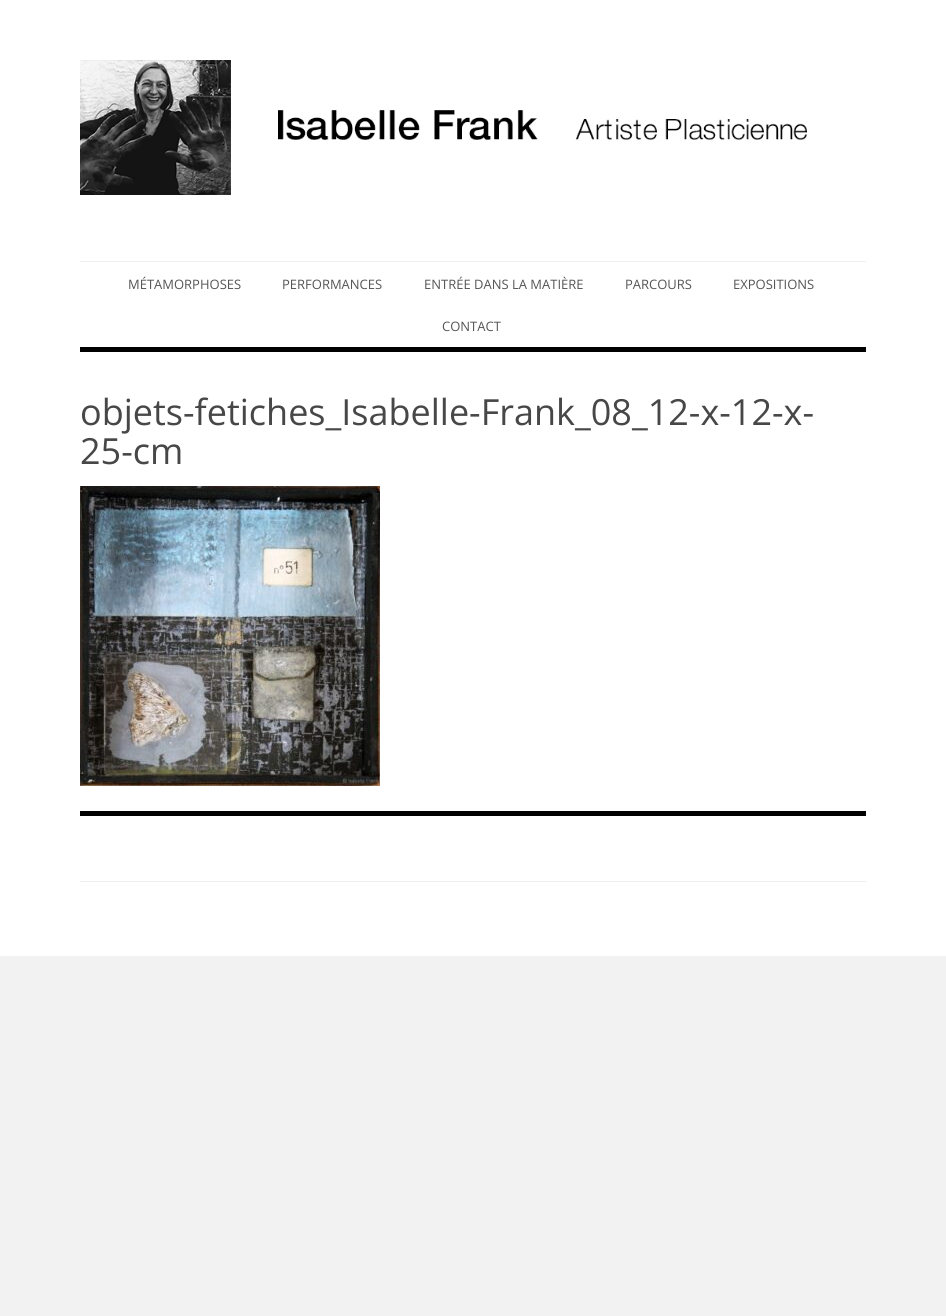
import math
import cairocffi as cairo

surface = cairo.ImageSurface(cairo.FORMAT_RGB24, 946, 1316)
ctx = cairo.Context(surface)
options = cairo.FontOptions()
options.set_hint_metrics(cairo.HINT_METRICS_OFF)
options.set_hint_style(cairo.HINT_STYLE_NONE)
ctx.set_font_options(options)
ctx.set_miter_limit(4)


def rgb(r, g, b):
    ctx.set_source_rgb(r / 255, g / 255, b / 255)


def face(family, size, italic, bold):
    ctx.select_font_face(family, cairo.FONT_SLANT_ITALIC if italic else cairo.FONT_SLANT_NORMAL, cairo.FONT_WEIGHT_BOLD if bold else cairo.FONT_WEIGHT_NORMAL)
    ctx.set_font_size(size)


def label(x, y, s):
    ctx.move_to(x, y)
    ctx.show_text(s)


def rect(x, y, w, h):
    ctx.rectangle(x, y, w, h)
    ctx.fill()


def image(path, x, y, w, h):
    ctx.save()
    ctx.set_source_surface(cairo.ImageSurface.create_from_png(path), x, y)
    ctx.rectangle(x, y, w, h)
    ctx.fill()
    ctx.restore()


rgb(242, 242, 242)
ctx.paint()
rgb(255, 255, 255)
rect(0, 0, 946, 956)
image('image0.png', 80, 60, 727, 135)
rgb(239, 239, 239)
rect(80, 261, 786, 1)
rgb(0, 0, 0)
rect(80, 347, 786, 5)
face('Open Sans', 13, 0, 0)
rgb(85, 85, 85)
label(128, 289, 'MÉTAMORPHOSES')
label(282, 289, 'PERFORMANCES')
label(424, 289, 'ENTRÉE DANS LA MATIÈRE')
label(625, 289, 'PARCOURS')
label(733, 289, 'EXPOSITIONS')
label(442, 331, 'CONTACT')
face('Open Sans', 36, 0, 0)
rgb(71, 71, 71)
label(80, 425, 'objets-fetiches_Isabelle-Frank_08_12-x-12-x-')
label(80, 464, '25-cm')
image('image1.png', 80, 486, 300, 300)
rgb(0, 0, 0)
rect(80, 811, 786, 5)
rgb(239, 239, 239)
rect(80, 881, 786, 1)
surface.write_to_png('render.png')
